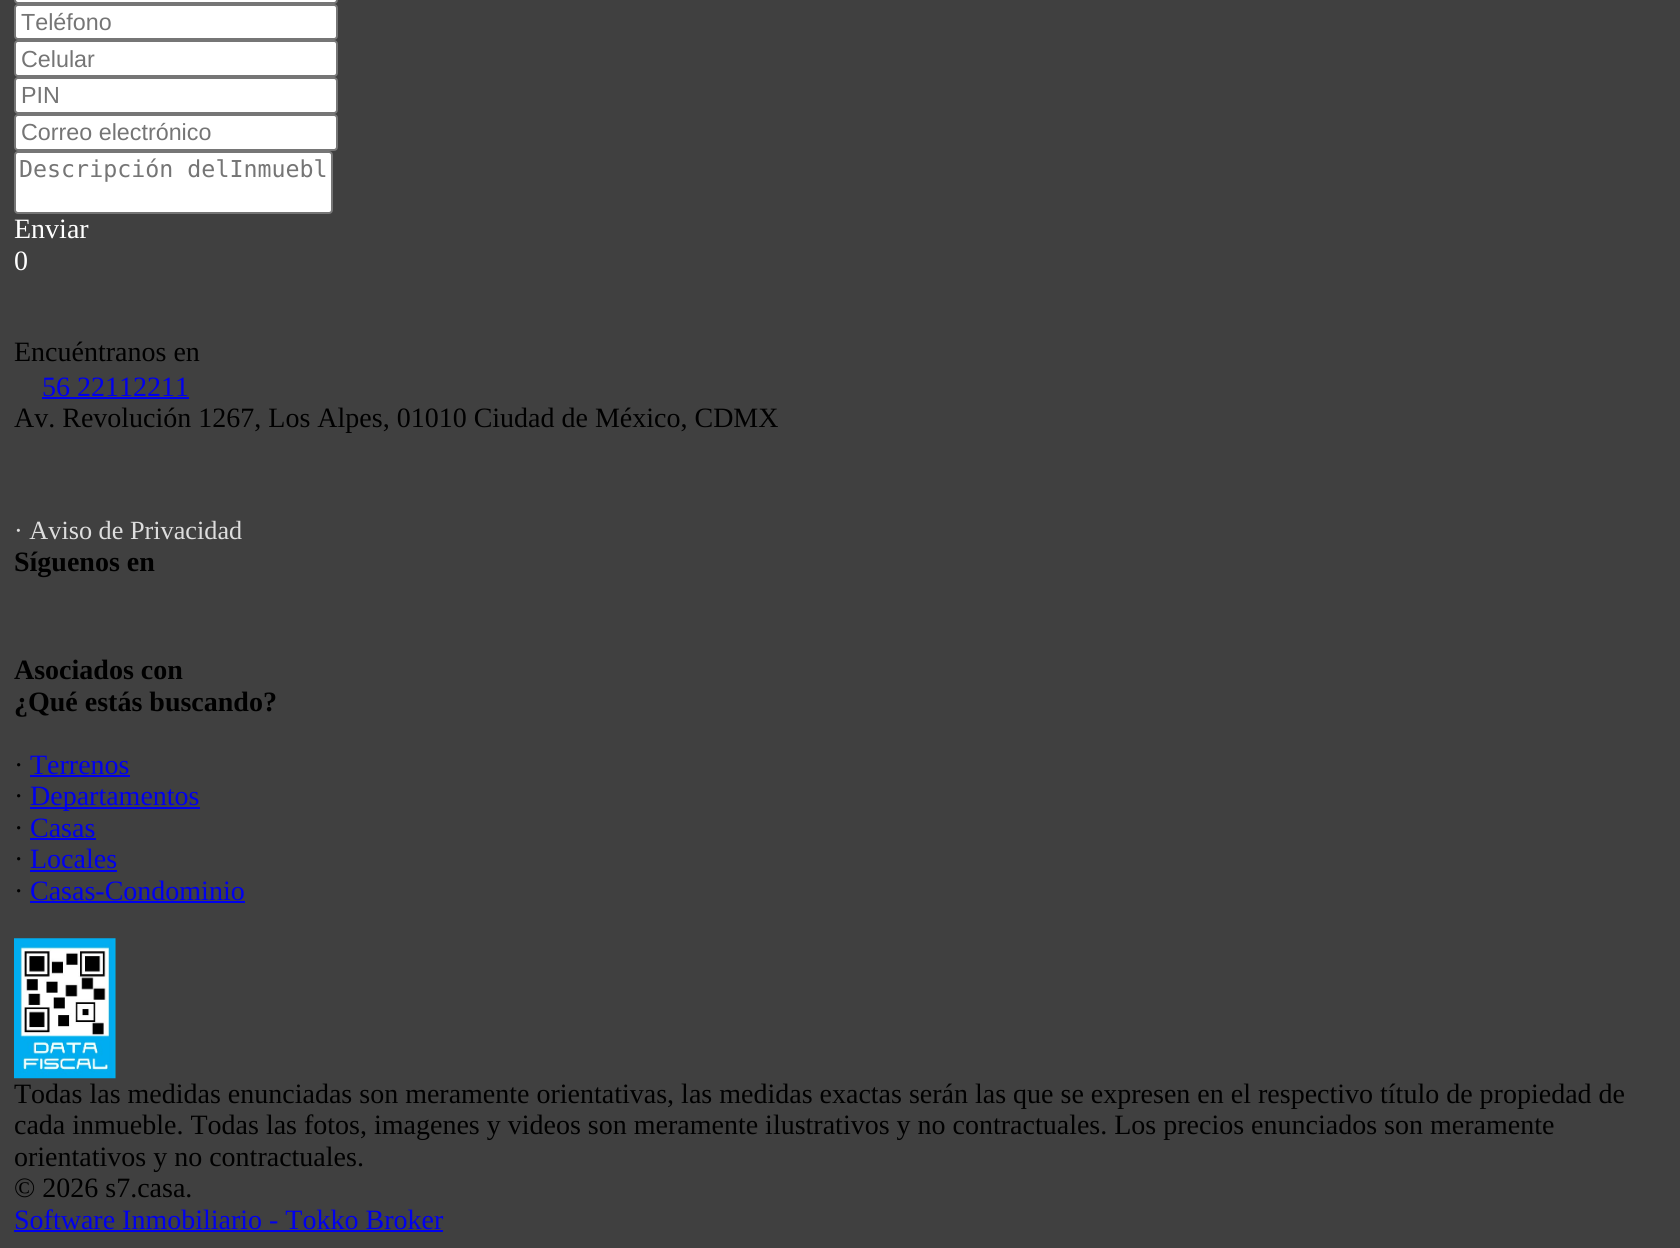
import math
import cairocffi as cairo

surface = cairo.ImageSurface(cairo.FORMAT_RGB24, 1680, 1248)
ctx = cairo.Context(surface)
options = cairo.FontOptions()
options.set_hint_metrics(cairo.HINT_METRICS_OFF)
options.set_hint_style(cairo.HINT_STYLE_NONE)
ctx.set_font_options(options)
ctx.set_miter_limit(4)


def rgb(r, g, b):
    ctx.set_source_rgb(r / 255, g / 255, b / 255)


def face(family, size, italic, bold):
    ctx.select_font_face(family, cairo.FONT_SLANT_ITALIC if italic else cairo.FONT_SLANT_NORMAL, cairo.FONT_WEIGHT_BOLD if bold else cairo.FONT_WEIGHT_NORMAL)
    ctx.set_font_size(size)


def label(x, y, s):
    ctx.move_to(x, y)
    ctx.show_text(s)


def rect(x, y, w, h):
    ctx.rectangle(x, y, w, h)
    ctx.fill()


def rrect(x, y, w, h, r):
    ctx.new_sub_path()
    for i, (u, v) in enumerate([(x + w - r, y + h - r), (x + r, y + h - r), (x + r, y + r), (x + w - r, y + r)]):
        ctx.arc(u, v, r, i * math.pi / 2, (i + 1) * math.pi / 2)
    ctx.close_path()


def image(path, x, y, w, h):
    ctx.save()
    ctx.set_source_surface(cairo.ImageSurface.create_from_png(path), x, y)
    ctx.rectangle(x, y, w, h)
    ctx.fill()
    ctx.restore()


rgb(64, 64, 64)
ctx.paint()
rgb(255, 255, 255)
rrect(15, -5, 322, 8, 3)
ctx.fill_preserve()
rgb(118, 118, 118)
ctx.stroke()
rgb(255, 255, 255)
rrect(15, 5, 322, 34, 3)
ctx.fill_preserve()
rgb(118, 118, 118)
ctx.stroke()
face('Liberation Sans', 23.3, 0, 0)
rgb(117, 117, 117)
label(21, 30, 'Teléfono')
rgb(255, 255, 255)
rrect(15, 41, 322, 35, 3)
ctx.fill_preserve()
rgb(118, 118, 118)
ctx.stroke()
rgb(117, 117, 117)
label(21, 67, 'Celular')
rgb(255, 255, 255)
rrect(15, 78, 322, 35, 3)
ctx.fill_preserve()
rgb(118, 118, 118)
ctx.stroke()
rgb(117, 117, 117)
label(21, 103, 'PIN')
rgb(255, 255, 255)
rrect(15, 115, 322, 35, 3)
ctx.fill_preserve()
rgb(118, 118, 118)
ctx.stroke()
rgb(117, 117, 117)
label(21, 140, 'Correo electrónico')
rgb(255, 255, 255)
rrect(15, 152, 317, 61, 3)
ctx.fill_preserve()
rgb(118, 118, 118)
ctx.stroke()
face('DejaVu Sans Mono', 23.3, 0, 0)
rgb(117, 117, 117)
label(19, 177, 'Descripción delInmuebl')
face('Liberation Serif', 28, 0, 0)
rgb(255, 255, 255)
label(14, 238, 'Enviar')
label(14, 270, '0')
rgb(0, 0, 0)
label(14, 361, 'Encuéntranos en')
rgb(0, 0, 238)
label(42, 396, '56 22112211')
rect(42, 397, 147, 2)
rgb(0, 0, 0)
label(14, 427, 'Av. Revolución 1267, Los Alpes, 01010 Ciudad de México, CDMX')
face('Liberation Serif', 26.25, 0, 0)
rgb(221, 221, 221)
label(14, 539, '· Aviso de Privacidad')
face('Liberation Serif', 28, 0, 1)
rgb(0, 0, 0)
label(14, 571, 'Síguenos en')
label(14, 679, 'Asociados con')
label(14, 711, '¿Qué estás buscando?')
face('Liberation Serif', 28, 0, 0)
label(14, 774, '·')
rgb(0, 0, 238)
label(30, 774, 'Terrenos')
rect(30, 775, 100, 2)
rgb(0, 0, 0)
label(14, 805, '·')
rgb(0, 0, 238)
rect(30, 807, 170, 2)
label(30, 805, 'Departamentos')
rgb(0, 0, 0)
label(14, 837, '·')
rgb(0, 0, 238)
label(30, 837, 'Casas')
rect(30, 838, 66, 2)
rgb(0, 0, 0)
label(14, 868, '·')
rgb(0, 0, 238)
label(30, 868, 'Locales')
rect(30, 870, 87, 2)
rgb(0, 0, 0)
label(14, 900, '·')
rgb(0, 0, 238)
label(30, 900, 'Casas-Condominio')
rect(30, 901, 215, 2)
image('image0.png', 14, 938, 102, 141)
rgb(0, 0, 0)
label(14, 1103, 'Todas las medidas enunciadas son meramente orientativas, las medidas exactas serán las que se expresen en el respectivo título de propiedad de')
label(14, 1134, 'cada inmueble. Todas las fotos, imagenes y videos son meramente ilustrativos y no contractuales. Los precios enunciados son meramente')
label(14, 1166, 'orientativos y no contractuales.')
label(14, 1197, '© 2026 s7.casa.')
rgb(0, 0, 238)
label(14, 1229, 'Software Inmobiliario - Tokko Broker')
rect(14, 1230, 429, 2)
surface.write_to_png('render.png')
